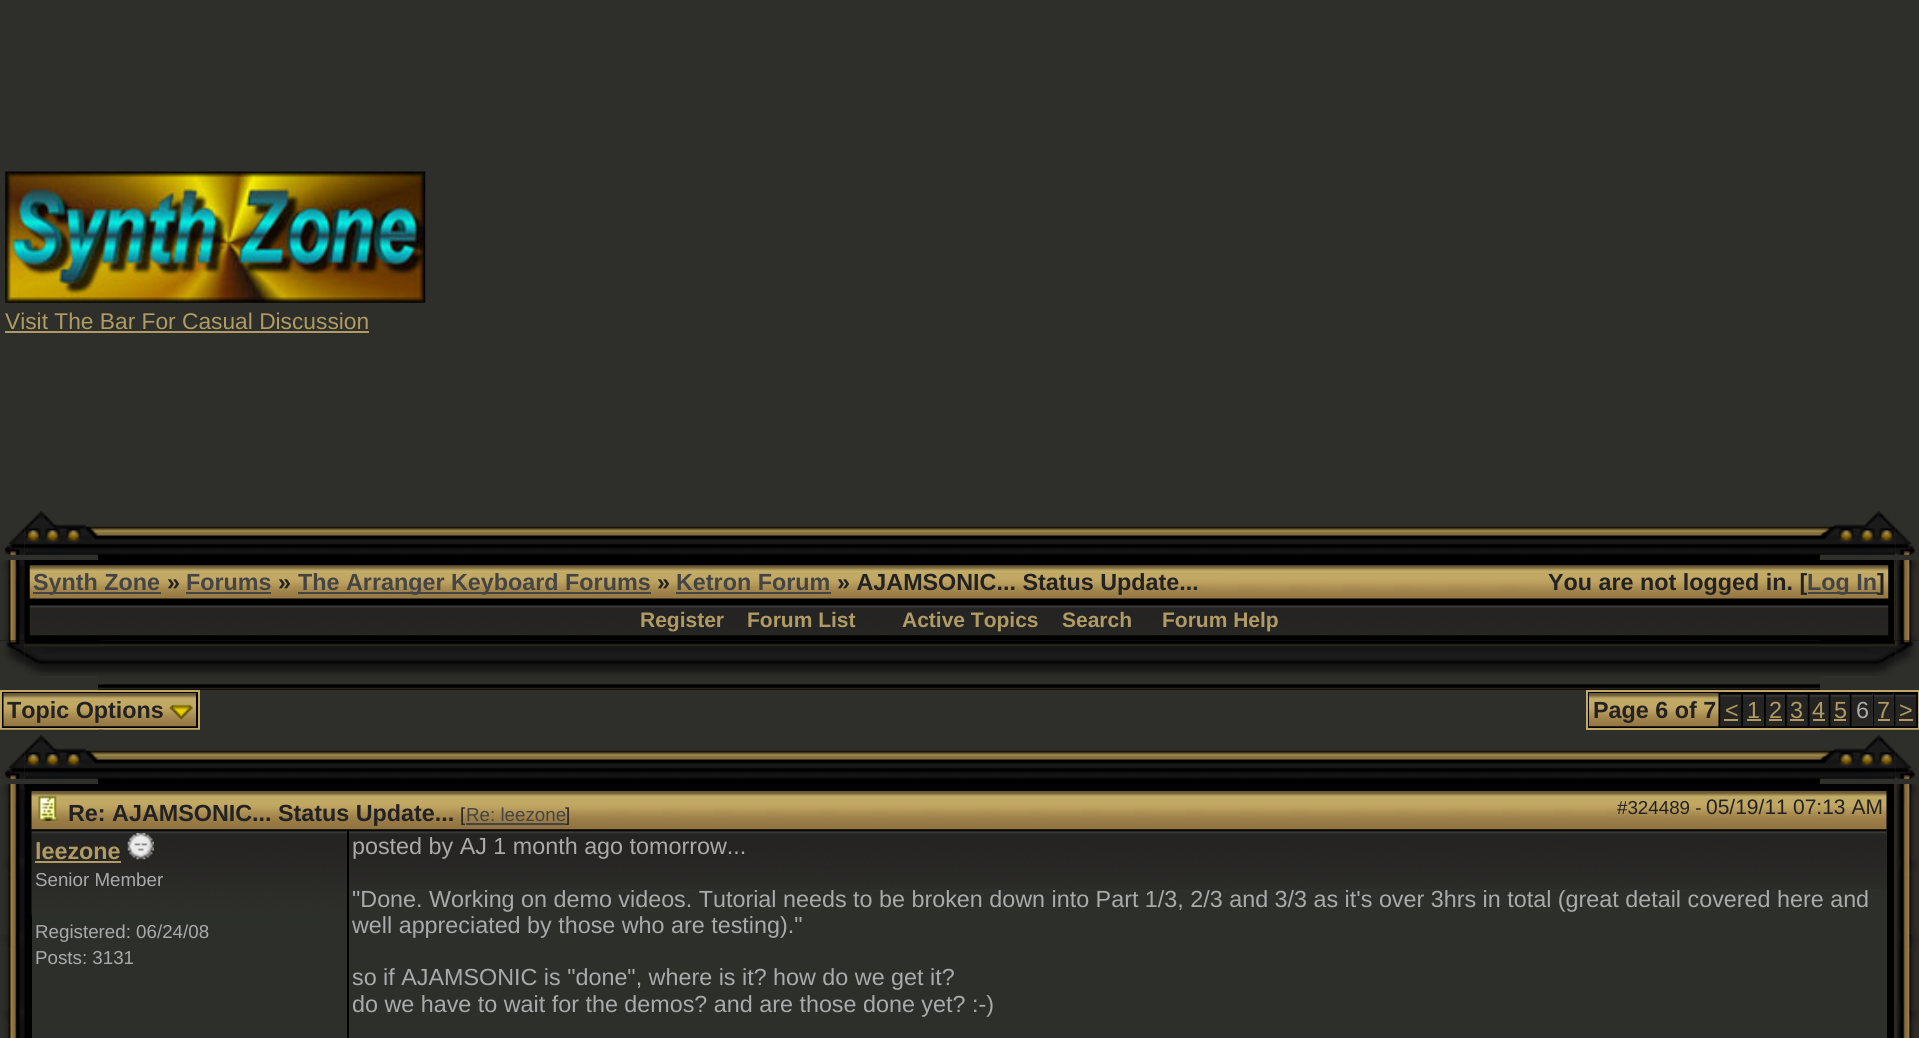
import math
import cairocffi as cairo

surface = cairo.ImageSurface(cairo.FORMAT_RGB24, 1919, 1038)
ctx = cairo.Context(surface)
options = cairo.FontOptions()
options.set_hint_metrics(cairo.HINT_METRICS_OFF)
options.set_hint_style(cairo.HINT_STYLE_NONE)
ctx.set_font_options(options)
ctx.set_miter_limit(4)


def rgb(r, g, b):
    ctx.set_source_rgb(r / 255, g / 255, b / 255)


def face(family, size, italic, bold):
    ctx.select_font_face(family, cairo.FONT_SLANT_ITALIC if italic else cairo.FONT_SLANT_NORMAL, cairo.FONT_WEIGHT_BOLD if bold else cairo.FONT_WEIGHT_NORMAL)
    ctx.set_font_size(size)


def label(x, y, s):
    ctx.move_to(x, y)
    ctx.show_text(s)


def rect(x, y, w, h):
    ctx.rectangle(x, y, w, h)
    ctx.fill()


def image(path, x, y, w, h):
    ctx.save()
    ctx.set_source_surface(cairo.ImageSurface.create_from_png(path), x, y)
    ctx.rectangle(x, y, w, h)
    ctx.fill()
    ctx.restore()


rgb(46, 47, 43)
ctx.paint()
image('image0.png', 5, 171, 421, 132)
face('Liberation Sans', 22.75, 0, 0)
rgb(175, 155, 99)
label(5, 329, 'Visit The Bar For Casual Discussion')
rect(5, 331, 364, 2)
image('image1.png', 4, 528, 21, 27)
image('image2.png', 24, 510, 74, 45)
rgb(0, 0, 0)
rect(98, 554, 1722, 6)
image('image3.png', 98, 506, 1722, 49)
image('image4.png', 1820, 510, 76, 45)
image('image5.png', 1895, 527, 20, 28)
rect(0, 560, 1894, 81)
image('image6.png', 0, 560, 25, 81)
image('image7.png', 9, 564, 16, 17)
rect(1895, 560, 24, 81)
image('image8.png', 1895, 560, 24, 81)
image('image9.png', 1895, 563, 16, 18)
rgb(44, 41, 31)
rect(1894, 560, 1, 81)
image('image10.png', 29, 565, 1860, 34)
rgb(68, 68, 68)
rect(33, 592, 128, 2)
face('Liberation Sans', 23.33, 0, 1)
label(33, 590, 'Synth Zone')
rgb(34, 34, 34)
label(167, 590, '»')
rgb(68, 68, 68)
label(186, 590, 'Forums')
rect(186, 592, 85, 2)
rgb(34, 34, 34)
label(278, 590, '»')
rgb(68, 68, 68)
rect(298, 592, 353, 2)
label(298, 590, 'The Arranger Keyboard Forums')
rgb(34, 34, 34)
label(657, 590, '»')
rgb(68, 68, 68)
label(676, 590, 'Ketron Forum')
rect(676, 592, 155, 2)
rgb(34, 34, 34)
label(837, 590, '» AJAMSONIC... Status Update...')
label(1548, 590, 'You are not logged in. [')
rgb(68, 68, 68)
rect(1808, 592, 70, 2)
label(1807, 590, 'Log In')
rgb(34, 34, 34)
label(1877, 590, ']')
image('image11.png', 29, 605, 1860, 31)
face('Liberation Sans', 21, 0, 1)
rgb(175, 155, 99)
label(640, 627, 'Register')
label(747, 627, 'Forum List')
label(902, 627, 'Active Topics')
label(1062, 627, 'Search')
label(1162, 627, 'Forum Help')
image('image12.png', 0, 640, 25, 28)
image('image13.png', 24, 641, 74, 35)
rgb(0, 0, 0)
rect(98, 689, 1722, 1)
image('image14.png', 98, 640, 1722, 50)
image('image15.png', 98, 640, 5, 45)
image('image16.png', 1820, 640, 76, 36)
image('image17.png', 1895, 640, 24, 27)
ctx.rectangle(1, 691, 198, 38)
ctx.fill_preserve()
rgb(193, 168, 100)
ctx.stroke()
image('image18.png', 3, 693, 193, 34)
face('Liberation Sans', 23.33, 0, 1)
rgb(34, 34, 34)
label(7, 718, 'Topic Options')
image('image19.png', 169, 704, 24, 16)
rgb(0, 0, 0)
rect(98, 778, 1722, 6)
image('image30.png', 98, 729, 1722, 50)
ctx.rectangle(1587, 691, 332, 38)
ctx.fill_preserve()
rgb(193, 168, 100)
ctx.stroke()
image('image20.png', 1589, 693, 130, 34)
rgb(34, 34, 34)
label(1593, 718, 'Page 6 of 7')
image('image21.png', 1720, 693, 22, 34)
face('Liberation Sans', 23.33, 0, 0)
rgb(175, 155, 99)
label(1725, 718, '<')
rect(1724, 719, 14, 2)
image('image22.png', 1743, 693, 21, 34)
label(1747, 718, '1')
rect(1747, 719, 14, 2)
image('image23.png', 1765, 693, 20, 34)
label(1769, 718, '2')
rect(1769, 719, 13, 2)
image('image24.png', 1786, 693, 22, 34)
label(1790, 718, '3')
rect(1790, 719, 14, 2)
image('image25.png', 1809, 693, 20, 34)
label(1812, 718, '4')
rect(1813, 719, 12, 2)
image('image25.png', 1830, 693, 20, 34)
label(1834, 718, '5')
rect(1834, 719, 12, 2)
rgb(45, 47, 43)
rect(1872, 693, 1, 33)
image('image26.png', 1851, 693, 22, 34)
rgb(170, 170, 170)
label(1856, 718, '6')
rgb(45, 47, 43)
rect(1874, 693, 20, 33)
image('image27.png', 1874, 693, 20, 34)
rgb(175, 155, 99)
label(1877, 718, '7')
rect(1878, 719, 12, 2)
image('image21.png', 1895, 693, 22, 34)
label(1899, 718, '>')
rect(1899, 719, 14, 2)
image('image28.png', 0, 729, 25, 50)
image('image29.png', 24, 729, 74, 50)
image('image31.png', 98, 729, 6, 1)
image('image32.png', 1820, 729, 76, 50)
image('image33.png', 1895, 729, 24, 50)
rgb(0, 0, 0)
rect(24, 784, 1870, 254)
image('image34.png', 0, 784, 25, 254)
image('image7.png', 9, 788, 16, 17)
rgb(44, 41, 31)
rect(1894, 784, 2, 254)
image('image35.png', 1895, 784, 24, 254)
image('image9.png', 1895, 787, 16, 18)
image('image36.png', 31, 791, 1856, 39)
image('image37.png', 38, 796, 21, 25)
face('Liberation Sans', 23.33, 0, 1)
rgb(34, 34, 34)
label(68, 821, 'Re: AJAMSONIC... Status Update...')
face('Liberation Sans', 18.75, 0, 0)
label(460, 821, '[')
rgb(68, 68, 68)
rect(466, 823, 99, 2)
label(466, 821, 'Re: leezone')
rgb(34, 34, 34)
label(565, 821, ']')
label(1617, 814, '#324489 -')
face('Liberation Sans', 21, 0, 0)
label(1706, 814, '05/19/11')
label(1793, 814, '07:13 AM')
rgb(45, 47, 43)
rect(32, 830, 315, 208)
image('image38.png', 31, 829, 316, 87)
face('Liberation Sans', 23.33, 0, 1)
rgb(175, 155, 99)
label(35, 859, 'leezone')
rect(35, 861, 86, 2)
image('image39.png', 127, 833, 27, 27)
face('Liberation Sans', 18.75, 0, 0)
rgb(170, 170, 170)
label(35, 886, 'Senior Member')
label(35, 938, 'Registered: 06/24/08')
label(35, 964, 'Posts: 3131')
rgb(45, 47, 43)
rect(349, 830, 1538, 208)
image('image40.png', 346, 829, 1541, 60)
rgb(0, 0, 0)
rect(347, 830, 2, 59)
face('Liberation Sans', 23.33, 0, 0)
rgb(170, 170, 170)
label(352, 854, 'posted by AJ 1 month ago tomorrow...')
label(352, 907, '"Done. Working on demo videos. Tutorial needs to be broken down into Part 1/3, 2/3 and 3/3 as it\'s over 3hrs in total (great detail covered here and')
label(352, 933, 'well appreciated by those who are testing)."')
label(352, 985, 'so if AJAMSONIC is "done", where is it? how do we get it?')
label(352, 1012, 'do we have to wait for the demos? and are those done yet? :-)')
surface.write_to_png('render.png')
